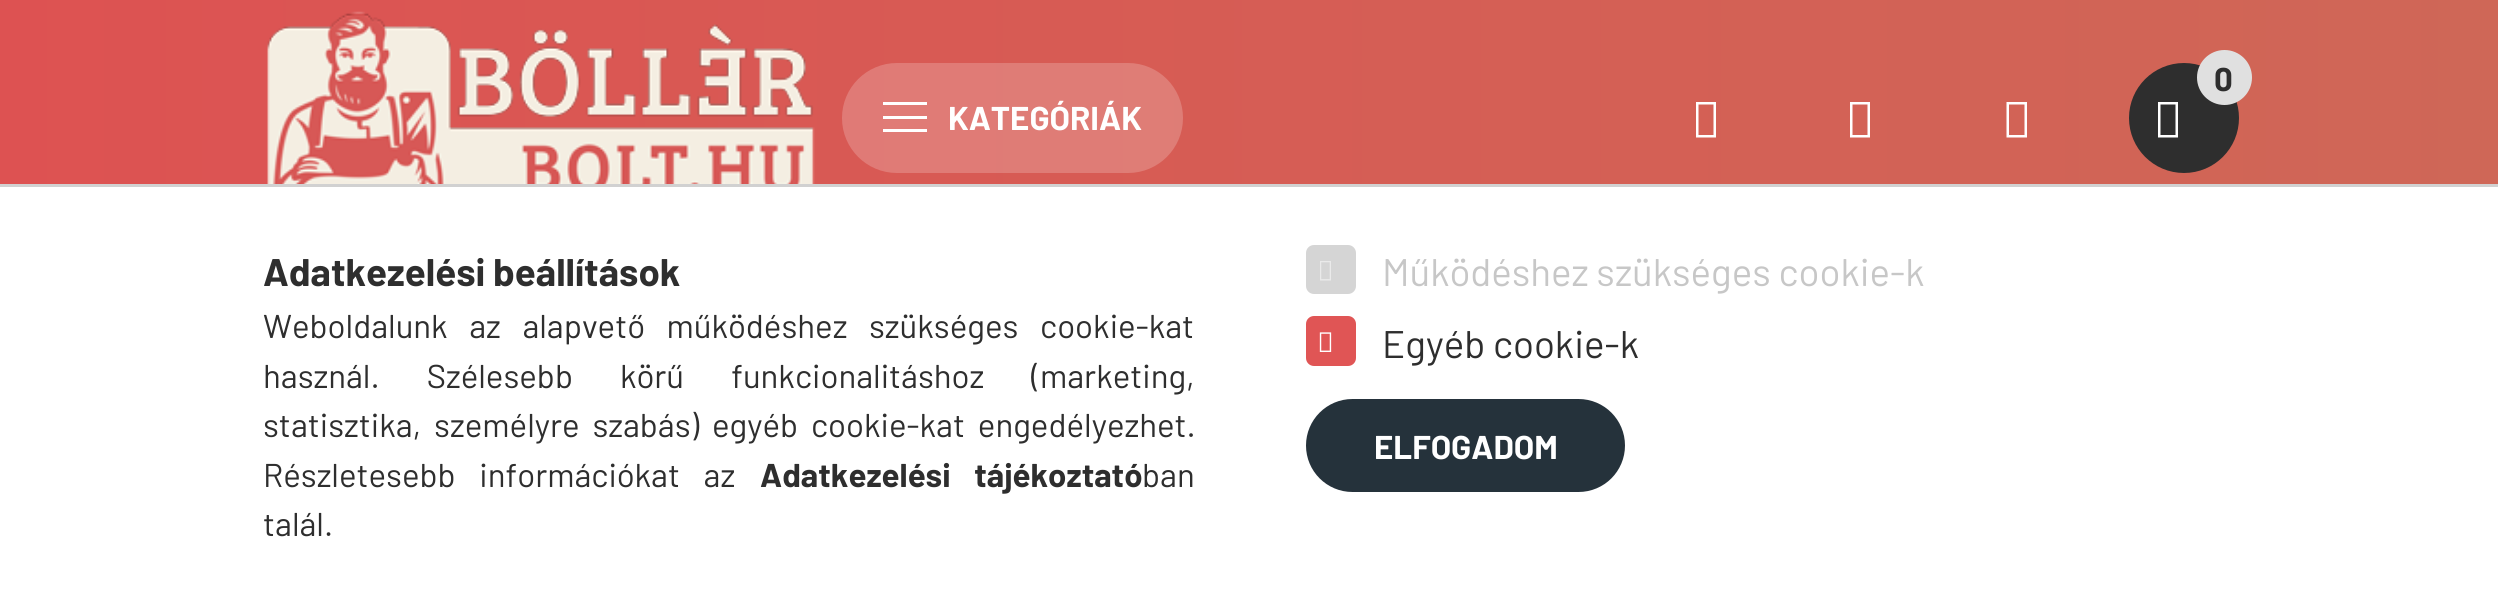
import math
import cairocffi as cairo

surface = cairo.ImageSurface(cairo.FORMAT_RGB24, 2498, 602)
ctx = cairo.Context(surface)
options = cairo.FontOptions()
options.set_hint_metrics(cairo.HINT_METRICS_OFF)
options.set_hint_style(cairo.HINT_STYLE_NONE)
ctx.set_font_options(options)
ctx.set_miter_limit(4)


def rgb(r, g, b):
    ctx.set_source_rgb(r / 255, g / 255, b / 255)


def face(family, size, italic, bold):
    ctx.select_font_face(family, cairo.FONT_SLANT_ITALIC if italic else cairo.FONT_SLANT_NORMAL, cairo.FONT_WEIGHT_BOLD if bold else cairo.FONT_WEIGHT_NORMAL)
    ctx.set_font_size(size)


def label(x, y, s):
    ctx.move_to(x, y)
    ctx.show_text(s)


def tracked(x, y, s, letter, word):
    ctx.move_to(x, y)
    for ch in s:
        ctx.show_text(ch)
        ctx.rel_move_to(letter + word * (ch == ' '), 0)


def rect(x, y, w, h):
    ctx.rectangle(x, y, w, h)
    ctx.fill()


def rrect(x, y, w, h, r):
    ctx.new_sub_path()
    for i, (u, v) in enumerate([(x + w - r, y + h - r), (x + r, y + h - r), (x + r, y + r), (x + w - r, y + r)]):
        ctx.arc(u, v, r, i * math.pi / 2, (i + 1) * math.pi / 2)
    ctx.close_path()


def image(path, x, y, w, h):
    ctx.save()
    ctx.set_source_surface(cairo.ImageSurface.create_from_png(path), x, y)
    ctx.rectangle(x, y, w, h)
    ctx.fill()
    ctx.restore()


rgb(255, 255, 255)
ctx.paint()
gradient = cairo.LinearGradient(0, 301, 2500, 301)
gradient.add_color_stop_rgba(0, 0.867, 0.322, 0.322, 1)
gradient.add_color_stop_rgba(1, 0.812, 0.404, 0.341, 1)
ctx.set_source(gradient)
rect(0, 0, 2498, 184)
rgb(46, 46, 46)
ctx.arc(2184, 118, 55, 0, 2 * math.pi)
ctx.fill()
rgb(224, 224, 224)
ctx.arc(2224.5, 77.5, 27.5, 0, 2 * math.pi)
ctx.fill()
face('Barlow', 33, 0, 1)
rgb(46, 46, 46)
label(2214, 91, '0')
rgb(255, 255, 255)
ctx.new_path()
ctx.move_to(2158, 137.5)
ctx.line_to(2158, 102)
ctx.line_to(2178, 102)
ctx.line_to(2178, 137.5)
ctx.close_path()
ctx.move_to(2160.5, 135)
ctx.line_to(2175.5, 135)
ctx.line_to(2175.5, 104.5)
ctx.line_to(2160.5, 104.5)
ctx.close_path()
ctx.fill()
ctx.new_path()
ctx.move_to(1696, 137.5)
ctx.line_to(1696, 102)
ctx.line_to(1716, 102)
ctx.line_to(1716, 137.5)
ctx.close_path()
ctx.move_to(1698.5, 135)
ctx.line_to(1713.5, 135)
ctx.line_to(1713.5, 104.5)
ctx.line_to(1698.5, 104.5)
ctx.close_path()
ctx.fill()
ctx.new_path()
ctx.move_to(1850, 137.5)
ctx.line_to(1850, 102)
ctx.line_to(1870, 102)
ctx.line_to(1870, 137.5)
ctx.close_path()
ctx.move_to(1852.5, 135)
ctx.line_to(1867.5, 135)
ctx.line_to(1867.5, 104.5)
ctx.line_to(1852.5, 104.5)
ctx.close_path()
ctx.fill()
ctx.new_path()
ctx.move_to(2006.5, 137.5)
ctx.line_to(2006.5, 102)
ctx.line_to(2027, 102)
ctx.line_to(2027, 137.5)
ctx.close_path()
ctx.move_to(2009, 135)
ctx.line_to(2024.5, 135)
ctx.line_to(2024.5, 104.5)
ctx.line_to(2009, 104.5)
ctx.close_path()
ctx.fill()
image('image0.png', 267, 11, 548, 173)
ctx.set_source_rgba(1, 1, 1, 0.2)
rrect(842, 63, 341, 110, 55)
ctx.fill()
rgb(255, 255, 255)
rect(883, 102, 44, 3)
rect(883, 116, 44, 3)
rect(883, 129, 44, 3)
label(948, 130, 'KATEGÓRIÁK')
rgb(209, 209, 209)
rect(0, 184, 2498, 3)
face('Barlow', 38.5, 0, 1)
rgb(46, 46, 46)
label(263, 286, 'Adatkezelési beállítások')
face('Barlow', 33, 0, 0)
tracked(263, 338, 'Weboldalunk az alapvető működéshez szükséges cookie-kat', 0, 15)
tracked(263, 388, 'használ. Szélesebb körű funkcionalitáshoz (marketing,', 0, 40.5)
tracked(263, 437, 'statisztika, személyre szabás) egyéb cookie-kat engedélyezhet.', 0, 6.25)
tracked(263, 487, 'Részletesebb információkat az', 0, 17)
face('Barlow', 33, 0, 1)
tracked(760, 487, 'Adatkezelési tájékoztató', 0, 17)
face('Barlow', 33, 0, 0)
label(1142, 487, 'ban')
label(263, 536, 'talál.')
rgb(213, 213, 213)
rrect(1307.5, 246.5, 47, 46, 6.5)
ctx.fill_preserve()
ctx.set_line_width(3)
ctx.stroke()
image('image1.png', 1320, 261, 11, 20)
face('Barlow', 38.5, 0, 0)
rgb(199, 199, 199)
label(1382, 286, 'Működéshez szükséges cookie-k')
rgb(224, 85, 85)
rrect(1307.5, 317.5, 47, 47, 6.5)
ctx.fill_preserve()
ctx.stroke()
image('image2.png', 1319, 332, 13, 20)
rgb(46, 46, 46)
label(1382, 358, 'Egyéb cookie-k')
gradient = cairo.LinearGradient(1306, 446, 2263, 446)
gradient.add_color_stop_rgba(0.33, 0.145, 0.196, 0.231, 1)
gradient.add_color_stop_rgba(0.67, 0.878, 0.333, 0.333, 1)
ctx.set_source(gradient)
rrect(1306, 399, 319, 93, 46.5)
ctx.fill()
face('Barlow', 33, 0, 1)
rgb(255, 255, 255)
label(1374, 459, 'ELFOGADOM')
surface.write_to_png('render.png')
